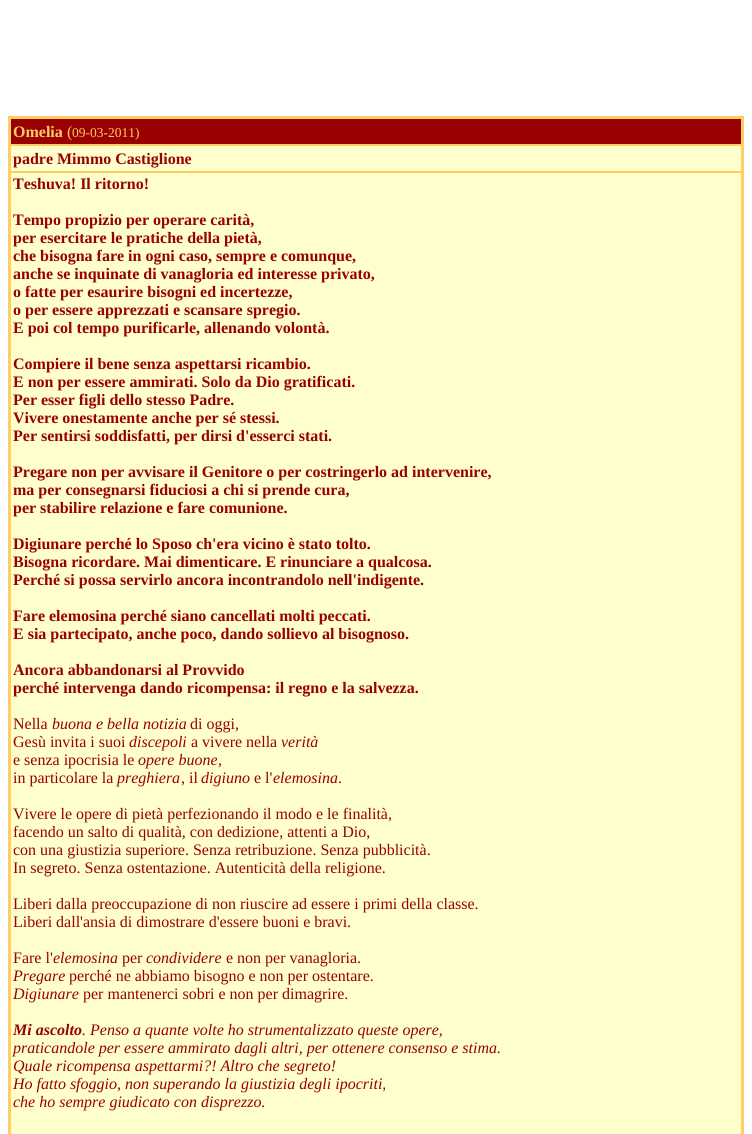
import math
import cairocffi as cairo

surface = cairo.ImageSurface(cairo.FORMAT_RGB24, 752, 1134)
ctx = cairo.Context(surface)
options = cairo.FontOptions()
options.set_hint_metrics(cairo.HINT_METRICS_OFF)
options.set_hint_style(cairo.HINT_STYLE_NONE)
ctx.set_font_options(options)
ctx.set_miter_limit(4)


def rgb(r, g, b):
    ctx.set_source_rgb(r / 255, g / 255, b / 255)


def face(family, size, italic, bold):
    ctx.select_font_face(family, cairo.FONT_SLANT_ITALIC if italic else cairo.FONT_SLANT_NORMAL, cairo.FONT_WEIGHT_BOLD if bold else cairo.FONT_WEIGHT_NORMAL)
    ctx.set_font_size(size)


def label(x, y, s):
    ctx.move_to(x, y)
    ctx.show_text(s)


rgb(255, 255, 255)
ctx.paint()
ctx.rectangle(9, 117, 734, 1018)
rgb(255, 204, 102)
ctx.stroke()
rgb(153, 0, 0)
ctx.rectangle(10.5, 118.5, 731, 26)
ctx.fill_preserve()
rgb(255, 204, 102)
ctx.set_line_width(1)
ctx.stroke()
face('Liberation Serif', 16, 0, 1)
label(13, 137, 'Omelia')
face('Liberation Serif', 16, 0, 0)
label(67, 137, '(')
face('Liberation Serif', 13.5, 0, 0)
label(72, 137, '09-03-2011)')
rgb(255, 255, 204)
ctx.rectangle(10.5, 145.5, 731, 26)
ctx.fill_preserve()
rgb(255, 204, 102)
ctx.stroke()
face('Liberation Serif', 16, 0, 1)
rgb(153, 0, 0)
label(13, 164, 'padre Mimmo Castiglione')
rgb(255, 255, 204)
ctx.rectangle(10.5, 172.5, 731, 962)
ctx.fill_preserve()
rgb(255, 204, 102)
ctx.stroke()
rgb(153, 0, 0)
label(13, 189, 'Teshuva! Il ritorno!')
label(13, 225, 'Tempo propizio per operare carità,')
label(13, 243, 'per esercitare le pratiche della pietà,')
label(13, 261, 'che bisogna fare in ogni caso, sempre e comunque,')
label(13, 279, 'anche se inquinate di vanagloria ed interesse privato,')
label(13, 297, 'o fatte per esaurire bisogni ed incertezze,')
label(13, 315, 'o per essere apprezzati e scansare spregio.')
label(13, 333, 'E poi col tempo purificarle, allenando volontà.')
label(13, 369, 'Compiere il bene senza aspettarsi ricambio.')
label(13, 387, 'E non per essere ammirati. Solo da Dio gratificati.')
label(13, 405, 'Per esser figli dello stesso Padre.')
label(13, 423, 'Vivere onestamente anche per sé stessi.')
label(13, 441, 'Per sentirsi soddisfatti, per dirsi d\'esserci stati.')
label(13, 477, 'Pregare non per avvisare il Genitore o per costringerlo ad intervenire,')
label(13, 495, 'ma per consegnarsi fiduciosi a chi si prende cura,')
label(13, 513, 'per stabilire relazione e fare comunione.')
label(13, 549, 'Digiunare perché lo Sposo ch\'era vicino è stato tolto.')
label(13, 567, 'Bisogna ricordare. Mai dimenticare. E rinunciare a qualcosa.')
label(13, 585, 'Perché si possa servirlo ancora incontrandolo nell\'indigente.')
label(13, 621, 'Fare elemosina perché siano cancellati molti peccati.')
label(13, 639, 'E sia partecipato, anche poco, dando sollievo al bisognoso.')
label(13, 675, 'Ancora abbandonarsi al Provvido')
label(13, 693, 'perché intervenga dando ricompensa: il regno e la salvezza.')
face('Liberation Serif', 16, 0, 0)
label(13, 729, 'Nella')
face('Liberation Serif', 16, 1, 0)
label(52, 729, 'buona e bella notizia')
face('Liberation Serif', 16, 0, 0)
label(190, 729, 'di oggi,')
label(13, 747, 'Gesù invita i suoi')
face('Liberation Serif', 16, 1, 0)
label(129, 747, 'discepoli')
face('Liberation Serif', 16, 0, 0)
label(191, 747, 'a vivere nella')
face('Liberation Serif', 16, 1, 0)
label(281, 747, 'verità')
face('Liberation Serif', 16, 0, 0)
label(13, 765, 'e senza ipocrisia le')
face('Liberation Serif', 16, 1, 0)
label(138, 765, 'opere buone')
face('Liberation Serif', 16, 0, 0)
label(218, 765, ',')
label(13, 783, 'in particolare la')
face('Liberation Serif', 16, 1, 0)
label(117, 783, 'preghiera')
face('Liberation Serif', 16, 0, 0)
label(181, 783, ', il')
face('Liberation Serif', 16, 1, 0)
label(201, 783, 'digiuno')
face('Liberation Serif', 16, 0, 0)
label(254, 783, 'e l\'')
face('Liberation Serif', 16, 1, 0)
label(273, 783, 'elemosina')
face('Liberation Serif', 16, 0, 0)
label(338, 783, '.')
label(13, 819, 'Vivere le opere di pietà perfezionando il modo e le finalità,')
label(13, 837, 'facendo un salto di qualità, con dedizione, attenti a Dio,')
label(13, 855, 'con una giustizia superiore. Senza retribuzione. Senza pubblicità.')
label(13, 873, 'In segreto. Senza ostentazione. Autenticità della religione.')
label(13, 909, 'Liberi dalla preoccupazione di non riuscire ad essere i primi della classe.')
label(13, 927, 'Liberi dall\'ansia di dimostrare d\'essere buoni e bravi.')
label(13, 963, 'Fare l\'')
face('Liberation Serif', 16, 1, 0)
label(53, 963, 'elemosina')
face('Liberation Serif', 16, 0, 0)
label(122, 963, 'per')
face('Liberation Serif', 16, 1, 0)
label(146, 963, 'condividere')
face('Liberation Serif', 16, 0, 0)
label(226, 963, 'e non per vanagloria.')
face('Liberation Serif', 16, 1, 0)
label(13, 981, 'Pregare')
face('Liberation Serif', 16, 0, 0)
label(69, 981, 'perché ne abbiamo bisogno e non per ostentare.')
face('Liberation Serif', 16, 1, 0)
label(13, 999, 'Digiunare')
face('Liberation Serif', 16, 0, 0)
label(83, 999, 'per mantenerci sobri e non per dimagrire.')
face('Liberation Serif', 16, 1, 1)
label(13, 1035, 'Mi ascolto')
face('Liberation Serif', 16, 1, 0)
label(82, 1035, '. Penso a quante volte ho strumentalizzato queste opere,')
label(13, 1053, 'praticandole per essere ammirato dagli altri, per ottenere consenso e stima.')
label(13, 1071, 'Quale ricompensa aspettarmi?! Altro che segreto!')
label(13, 1089, 'Ho fatto sfoggio, non superando la giustizia degli ipocriti,')
label(13, 1107, 'che ho sempre giudicato con disprezzo.')
surface.write_to_png('render.png')
